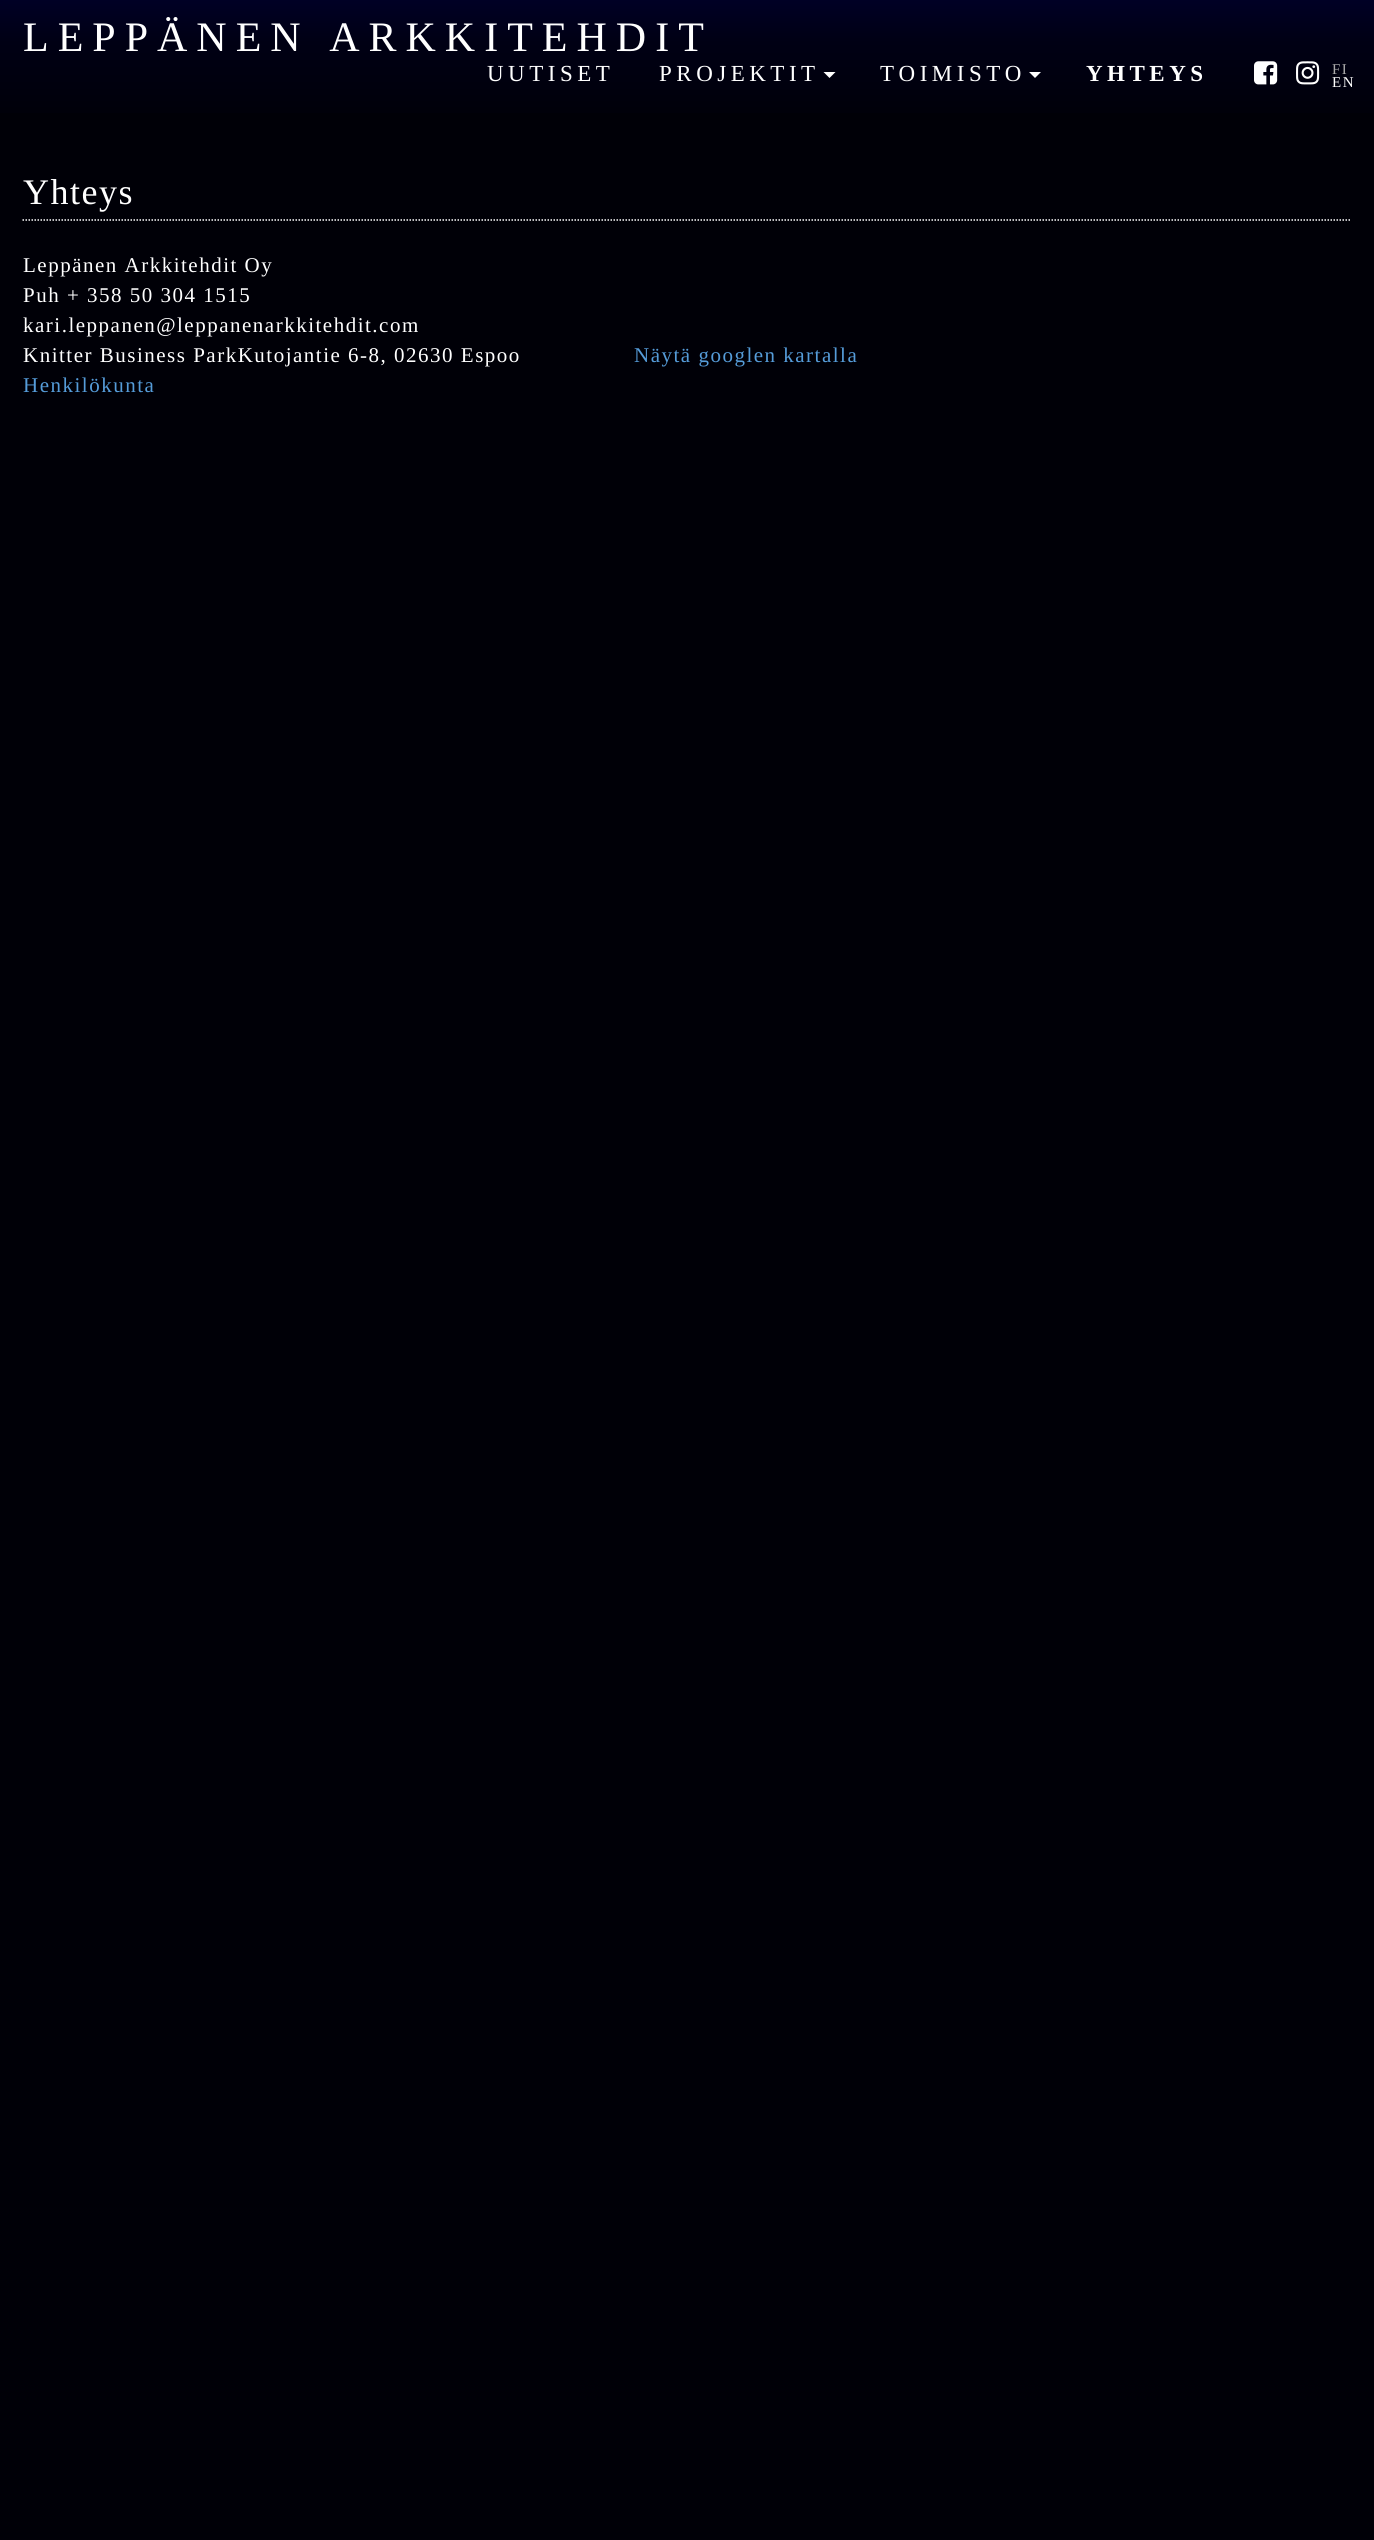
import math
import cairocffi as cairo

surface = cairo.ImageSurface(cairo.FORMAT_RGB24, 1374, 2540)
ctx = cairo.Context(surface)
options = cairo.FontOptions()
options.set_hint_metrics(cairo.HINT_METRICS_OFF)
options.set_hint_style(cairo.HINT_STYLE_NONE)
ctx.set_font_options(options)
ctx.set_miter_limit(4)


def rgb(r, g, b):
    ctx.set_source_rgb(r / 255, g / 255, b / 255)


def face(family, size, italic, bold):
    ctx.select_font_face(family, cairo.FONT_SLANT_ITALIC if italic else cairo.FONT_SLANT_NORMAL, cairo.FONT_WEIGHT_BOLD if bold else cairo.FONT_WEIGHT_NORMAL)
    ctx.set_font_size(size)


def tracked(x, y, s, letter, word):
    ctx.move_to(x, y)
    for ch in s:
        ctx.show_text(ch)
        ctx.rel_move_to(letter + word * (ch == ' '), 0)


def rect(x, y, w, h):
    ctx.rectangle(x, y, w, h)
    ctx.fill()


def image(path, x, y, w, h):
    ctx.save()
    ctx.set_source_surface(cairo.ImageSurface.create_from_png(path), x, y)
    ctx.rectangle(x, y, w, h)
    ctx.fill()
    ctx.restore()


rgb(0, 0, 7)
ctx.paint()
gradient = cairo.LinearGradient(687, 0, 687, 128)
gradient.add_color_stop_rgba(0, 0, 0, 0.145, 1)
gradient.add_color_stop_rgba(0.33, 0, 0, 0.078, 1)
gradient.add_color_stop_rgba(0.67, 0, 0, 0.055, 1)
gradient.add_color_stop_rgba(1, 0, 0, 0.027, 1)
ctx.set_source(gradient)
rect(0, 0, 1374, 113)
face('Liberation Serif', 42, 0, 0)
rgb(255, 255, 255)
tracked(23, 51, 'LEPPÄNEN ARKKITEHDIT', 9, 0)
face('Liberation Serif', 23, 0, 0)
tracked(487, 81, 'UUTISET', 4.5, 0)
tracked(659, 81, 'PROJEKTIT', 4.5, 0)
ctx.new_path()
ctx.move_to(823.5, 72)
ctx.line_to(835.5, 72)
ctx.line_to(829.5, 78)
ctx.close_path()
ctx.fill()
tracked(880, 81, 'TOIMISTO', 4.5, 0)
ctx.new_path()
ctx.move_to(1029, 72)
ctx.line_to(1041, 72)
ctx.line_to(1035, 78)
ctx.close_path()
ctx.fill()
face('Liberation Serif', 23, 0, 1)
tracked(1086, 81, 'YHTEYS', 4.5, 0)
image('image0.png', 1254, 61, 24, 24)
image('image1.png', 1296, 61, 24, 24)
face('Liberation Serif', 15, 0, 0)
rgb(170, 170, 170)
tracked(1332, 74, 'FI', 1.5, 0)
rgb(255, 255, 255)
tracked(1332, 87, 'EN', 1.5, 0)
face('Liberation Serif', 36, 0, 0)
tracked(23, 204, 'Yhteys', 1.5, 0)
ctx.new_path()
ctx.move_to(22.5, 220)
ctx.line_to(1351.5, 220)
ctx.set_line_width(1.5)
ctx.set_dash([1.5, 1.5])
ctx.stroke()
face('Liberation Serif', 21, 0, 0)
tracked(23, 272, 'Leppänen Arkkitehdit Oy', 1.5, 0)
tracked(23, 302, 'Puh + 358 50 304 1515', 1.5, 0)
tracked(23, 332, 'kari.leppanen@leppanenarkkitehdit.com', 1.5, 0)
tracked(23, 362, 'Knitter Business ParkKutojantie 6-8, 02630 Espoo', 1.5, 0)
rgb(85, 156, 217)
tracked(634, 362, 'Näytä googlen kartalla', 1.5, 0)
tracked(23, 392, 'Henkilökunta', 1.5, 0)
surface.write_to_png('render.png')
